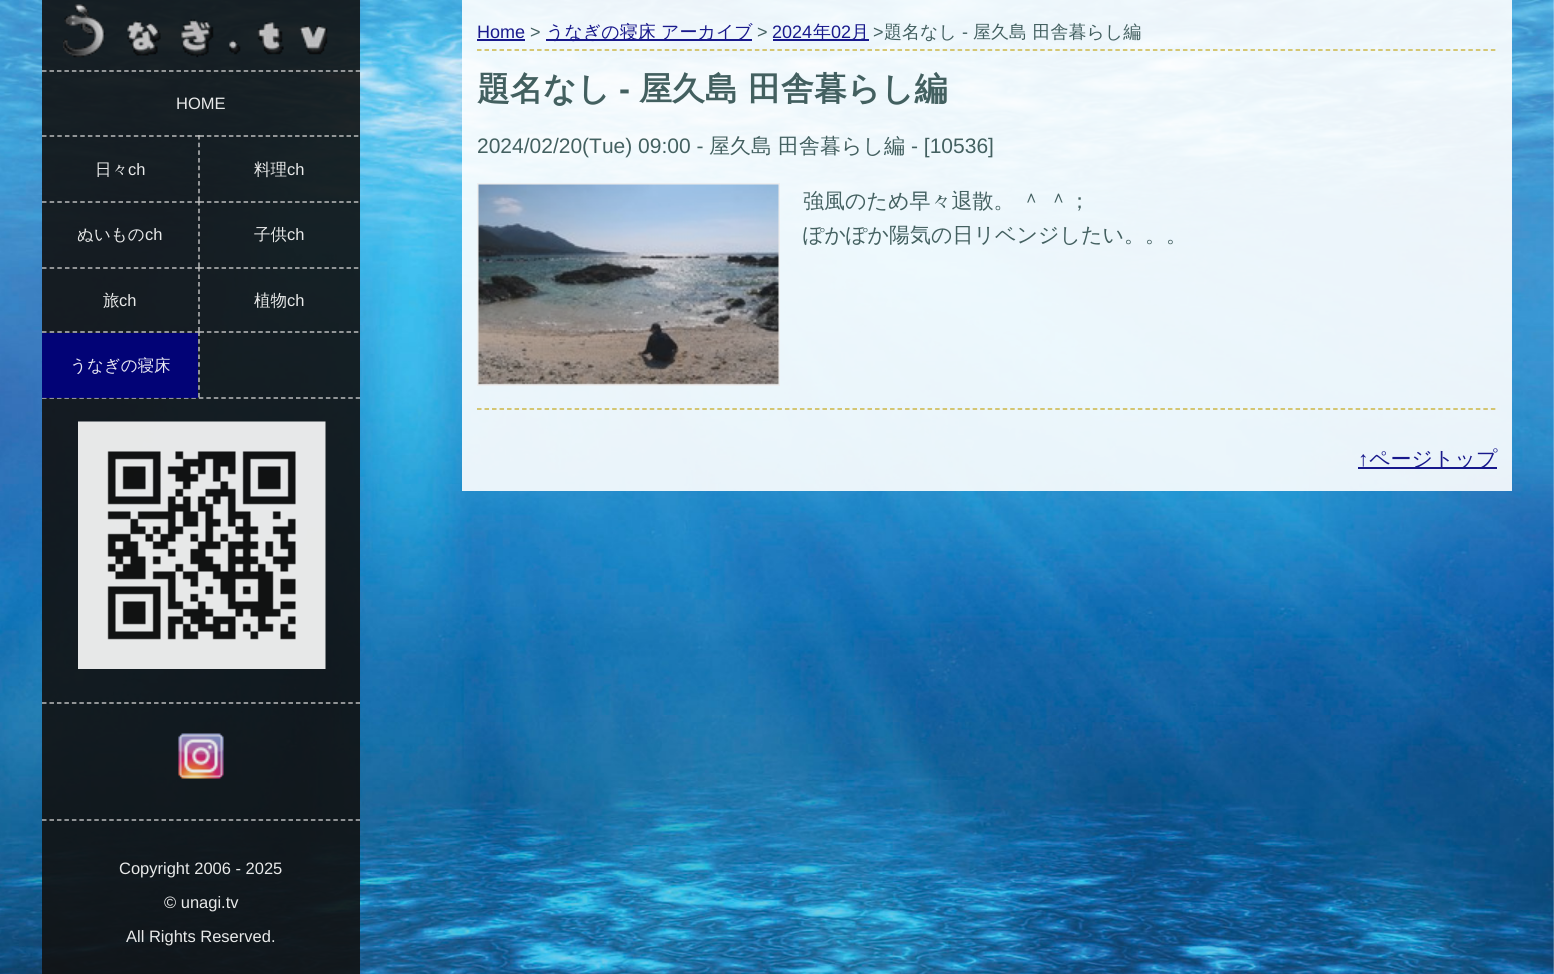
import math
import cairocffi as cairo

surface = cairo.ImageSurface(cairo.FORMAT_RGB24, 1554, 974)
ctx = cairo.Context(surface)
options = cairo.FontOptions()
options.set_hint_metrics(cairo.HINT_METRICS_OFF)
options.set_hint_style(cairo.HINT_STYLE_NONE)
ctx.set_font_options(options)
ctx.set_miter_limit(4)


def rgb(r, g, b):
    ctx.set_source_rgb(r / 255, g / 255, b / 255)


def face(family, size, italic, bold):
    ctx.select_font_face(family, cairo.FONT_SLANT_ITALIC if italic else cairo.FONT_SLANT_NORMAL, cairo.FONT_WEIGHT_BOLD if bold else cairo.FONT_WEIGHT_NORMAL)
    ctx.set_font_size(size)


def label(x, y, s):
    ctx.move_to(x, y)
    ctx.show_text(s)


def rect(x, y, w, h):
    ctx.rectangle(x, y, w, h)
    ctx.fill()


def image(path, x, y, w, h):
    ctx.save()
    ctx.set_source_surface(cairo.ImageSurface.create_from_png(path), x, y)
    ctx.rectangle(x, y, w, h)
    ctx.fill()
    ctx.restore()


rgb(255, 255, 255)
ctx.paint()
image('image0.png', 0, 0, 1554, 974)
ctx.set_source_rgba(0.067, 0.067, 0.067, 0.9)
rect(42, 0, 318, 974)
image('image1.png', 63, 4, 265, 54)
ctx.new_path()
ctx.move_to(42, 71)
ctx.line_to(360, 71)
ctx.set_source_rgba(0.8, 0.8, 0.8, 0.9)
ctx.set_line_width(1.5)
ctx.set_dash([4.5, 2.97])
ctx.stroke()
face('Liberation Sans', 16.5, 0, 0)
rgb(232, 233, 233)
label(176, 109, 'HOME')
ctx.new_path()
ctx.move_to(42, 136)
ctx.line_to(199.5, 136)
rgb(186, 187, 187)
ctx.set_dash([4.5, 3.15])
ctx.stroke()
ctx.new_path()
ctx.move_to(199, 135)
ctx.line_to(199, 201)
ctx.set_source_rgba(0.8, 0.8, 0.8, 0.9)
ctx.set_dash([4.5, 3.18])
ctx.stroke()
face('WenQuanYi Zen Hei Medium', 16.5, 0, 0)
rgb(232, 233, 233)
label(95, 175, '日々')
face('Liberation Sans', 16.5, 0, 0)
label(128, 175, 'ch')
ctx.new_path()
ctx.move_to(199.5, 136)
ctx.line_to(358.5, 136)
ctx.set_source_rgba(0.8, 0.8, 0.8, 0.9)
ctx.set_dash([4.5, 2.85])
ctx.stroke()
face('WenQuanYi Zen Hei Medium', 16.5, 0, 0)
rgb(232, 233, 233)
label(254, 175, '料理')
face('Liberation Sans', 16.5, 0, 0)
label(287, 175, 'ch')
ctx.new_path()
ctx.move_to(42, 202)
ctx.line_to(199.5, 202)
rgb(186, 187, 187)
ctx.set_dash([4.5, 3.15])
ctx.stroke()
ctx.new_path()
ctx.move_to(199, 201)
ctx.line_to(199, 267)
ctx.set_source_rgba(0.8, 0.8, 0.8, 0.9)
ctx.set_dash([4.5, 3.18])
ctx.stroke()
face('WenQuanYi Zen Hei Medium', 16.5, 0, 0)
rgb(232, 233, 233)
label(77, 240, 'ぬいもの')
face('Liberation Sans', 16.5, 0, 0)
label(145, 240, 'ch')
ctx.new_path()
ctx.move_to(199.5, 202)
ctx.line_to(358.5, 202)
ctx.set_source_rgba(0.8, 0.8, 0.8, 0.9)
ctx.set_dash([4.5, 2.85])
ctx.stroke()
face('WenQuanYi Zen Hei Medium', 16.5, 0, 0)
rgb(232, 233, 233)
label(254, 240, '子供')
face('Liberation Sans', 16.5, 0, 0)
label(287, 240, 'ch')
ctx.new_path()
ctx.move_to(42, 268)
ctx.line_to(199.5, 268)
rgb(186, 186, 187)
ctx.set_dash([4.5, 3.15])
ctx.stroke()
ctx.new_path()
ctx.move_to(199, 267)
ctx.line_to(199, 331.5)
ctx.set_source_rgba(0.8, 0.8, 0.8, 0.9)
ctx.set_dash([4.5, 3])
ctx.stroke()
face('WenQuanYi Zen Hei Medium', 16.5, 0, 0)
rgb(232, 233, 233)
label(103, 306, '旅')
face('Liberation Sans', 16.5, 0, 0)
label(119, 306, 'ch')
ctx.new_path()
ctx.move_to(199.5, 268)
ctx.line_to(358.5, 268)
ctx.set_source_rgba(0.8, 0.8, 0.8, 0.9)
ctx.set_dash([4.5, 2.85])
ctx.stroke()
face('WenQuanYi Zen Hei Medium', 16.5, 0, 0)
rgb(232, 233, 233)
label(254, 306, '植物')
face('Liberation Sans', 16.5, 0, 0)
label(287, 306, 'ch')
ctx.new_path()
ctx.move_to(42, 332)
ctx.line_to(199.5, 332)
ctx.set_source_rgba(0.8, 0.8, 0.8, 0.9)
ctx.set_dash([4.5, 3.15])
ctx.stroke()
ctx.new_path()
ctx.move_to(42, 398)
ctx.line_to(360, 398)
ctx.set_dash([4.5, 2.97])
ctx.stroke()
ctx.new_path()
ctx.move_to(199, 331.5)
ctx.line_to(199, 397.5)
ctx.set_dash([4.5, 3.18])
ctx.stroke()
ctx.new_path()
ctx.move_to(199.5, 332)
ctx.line_to(358.5, 332)
ctx.set_dash([4.5, 2.85])
ctx.stroke()
ctx.set_source_rgba(0, 0, 0.502, 0.9)
rect(42, 333, 156, 65)
face('WenQuanYi Zen Hei Medium', 16.5, 0, 0)
rgb(230, 230, 241)
label(70, 371, 'うなぎの寝床')
image('image2.png', 78, 421, 248, 248)
ctx.new_path()
ctx.move_to(42, 703)
ctx.line_to(360, 703)
ctx.set_source_rgba(0.8, 0.8, 0.8, 0.9)
ctx.set_dash([4.5, 2.97])
ctx.stroke()
image('image3.png', 178, 733, 46, 46)
ctx.new_path()
ctx.move_to(42, 820)
ctx.line_to(360, 820)
rgb(185, 186, 187)
ctx.stroke()
face('Liberation Sans', 16.5, 0, 0)
rgb(232, 233, 233)
label(119, 874, 'Copyright 2006 - 2025')
label(164, 908, '© unagi.tv')
label(126, 942, 'All Rights Reserved.')
ctx.set_source_rgba(1, 1, 1, 0.9)
rect(462, 0, 1050, 491)
ctx.new_path()
ctx.move_to(477, 50)
ctx.line_to(1497, 50)
ctx.set_source_rgba(0.784, 0.69, 0.196, 0.9)
ctx.set_dash([4.5, 3.01])
ctx.stroke()
face('Liberation Sans', 18, 0, 0)
rgb(24, 25, 140)
label(477, 38, 'Home')
ctx.set_source_rgba(0, 0, 0.502, 0.9)
rect(477, 39, 48, 2)
rgb(67, 96, 96)
label(530, 38, '>')
ctx.set_source_rgba(0, 0, 0.502, 0.9)
rect(546, 39, 206, 2)
face('WenQuanYi Zen Hei Medium', 18, 0, 0)
rgb(24, 25, 140)
label(546, 38, 'うなぎの寝床 アーカイブ')
face('Liberation Sans', 18, 0, 0)
rgb(67, 96, 96)
label(757, 38, '>')
rgb(24, 25, 140)
label(772, 38, '2024')
ctx.set_source_rgba(0, 0, 0.502, 0.9)
rect(773, 39, 96, 2)
face('WenQuanYi Zen Hei Medium', 18, 0, 0)
rgb(24, 25, 140)
label(813, 38, '年')
face('Liberation Sans', 18, 0, 0)
label(831, 38, '02')
face('WenQuanYi Zen Hei Medium', 18, 0, 0)
label(851, 38, '月')
face('Liberation Sans', 18, 0, 0)
rgb(67, 96, 96)
label(873, 38, '>')
face('WenQuanYi Zen Hei Medium', 18, 0, 0)
label(884, 38, '題名なし')
face('Liberation Sans', 18, 0, 0)
label(962, 38, '-')
face('WenQuanYi Zen Hei Medium', 18, 0, 0)
label(973, 38, '屋久島 田舎暮らし編')
face('WenQuanYi Zen Hei', 33, 0, 1)
label(477, 100, '題名なし')
face('Liberation Sans', 33, 0, 1)
label(619, 100, '-')
face('WenQuanYi Zen Hei', 33, 0, 1)
label(639, 100, '屋久島 田舎暮らし編')
face('Liberation Sans', 21, 0, 0)
label(477, 153, '2024/02/20(Tue) 09:00 -')
face('WenQuanYi Zen Hei Medium', 21, 0, 0)
label(709, 153, '屋久島')
label(778, 153, '田舎暮らし編')
face('Liberation Sans', 21, 0, 0)
label(911, 153, '- [10536]')
ctx.rectangle(478, 184, 301, 201)
ctx.set_source_rgba(0.933, 0.933, 0.933, 0.9)
ctx.set_line_width(2)
ctx.set_dash([])
ctx.stroke()
image('image4.png', 478, 184, 301, 201)
face('WenQuanYi Zen Hei Medium', 21, 0, 0)
rgb(67, 96, 96)
label(803, 208, '強風のため早々退散。 ＾ ＾；')
label(803, 242, 'ぽかぽか陽気の日リベンジしたい。。。')
ctx.new_path()
ctx.move_to(477, 409)
ctx.line_to(1497, 409)
ctx.set_source_rgba(0.784, 0.69, 0.196, 0.9)
ctx.set_line_width(1.5)
ctx.set_dash([4.5, 3.01])
ctx.stroke()
face('Liberation Sans', 21, 0, 0)
rgb(24, 25, 140)
label(1358, 466, '↑')
rgb(23, 24, 140)
rect(1358, 467, 139, 2)
face('WenQuanYi Zen Hei Medium', 21, 0, 0)
rgb(24, 25, 140)
label(1369, 466, 'ページトップ')
surface.write_to_png('render.png')
